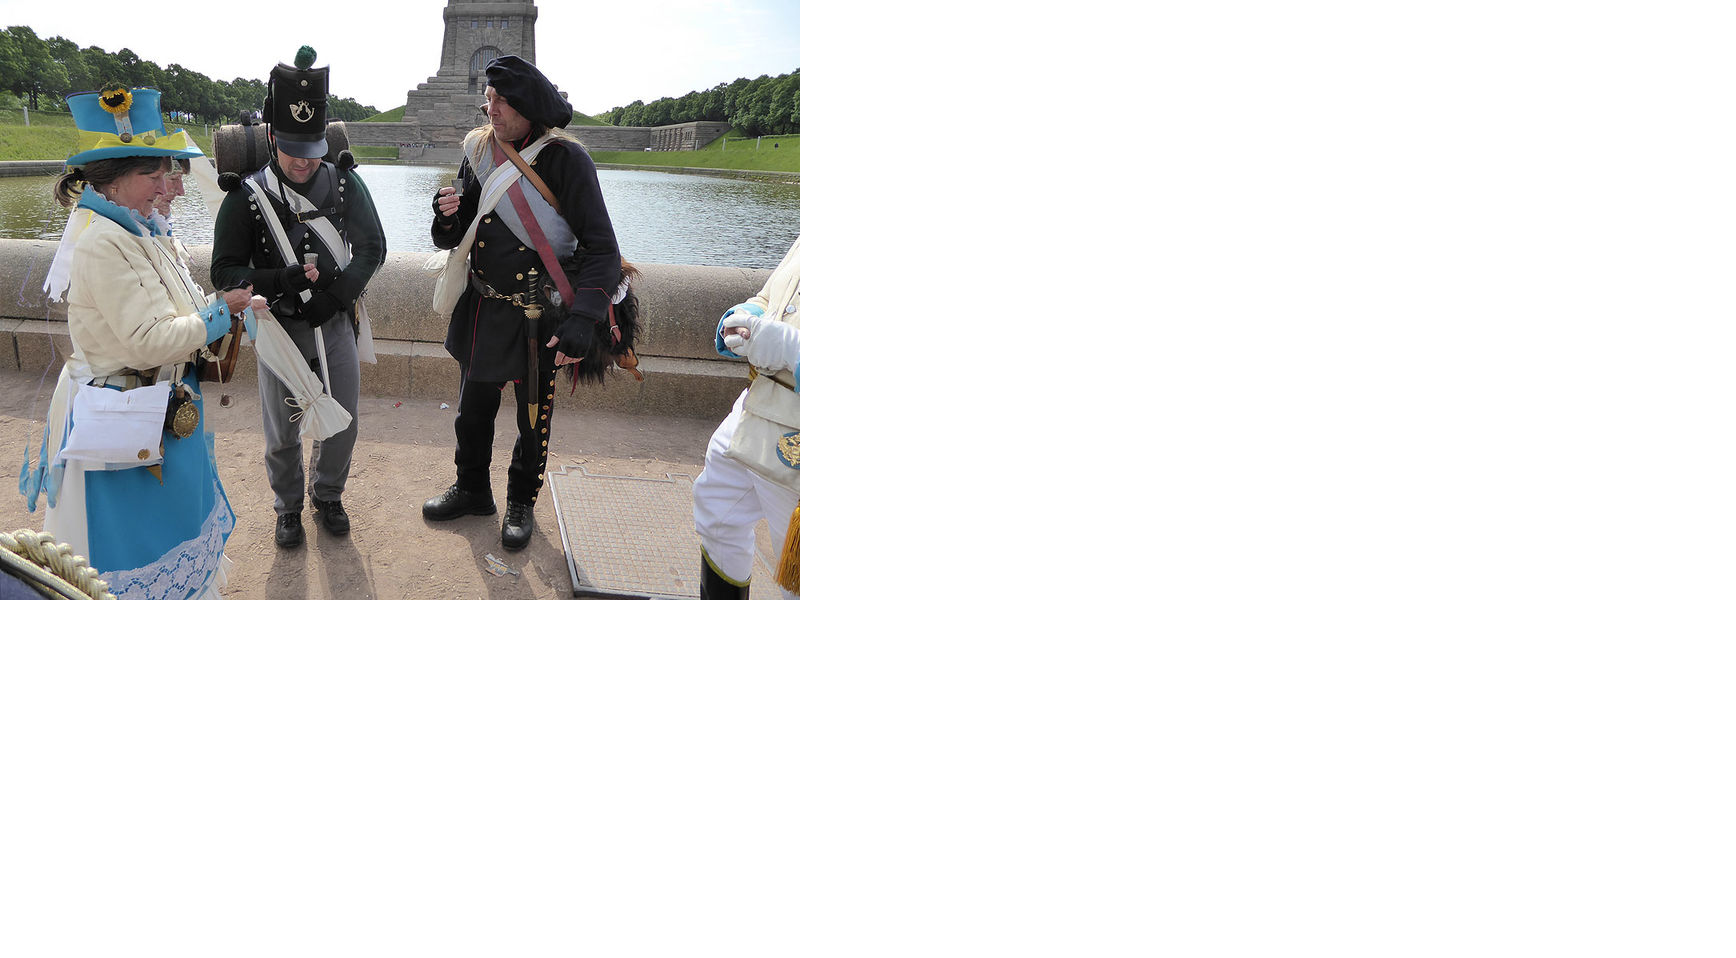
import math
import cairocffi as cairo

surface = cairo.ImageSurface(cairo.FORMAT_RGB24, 1736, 958)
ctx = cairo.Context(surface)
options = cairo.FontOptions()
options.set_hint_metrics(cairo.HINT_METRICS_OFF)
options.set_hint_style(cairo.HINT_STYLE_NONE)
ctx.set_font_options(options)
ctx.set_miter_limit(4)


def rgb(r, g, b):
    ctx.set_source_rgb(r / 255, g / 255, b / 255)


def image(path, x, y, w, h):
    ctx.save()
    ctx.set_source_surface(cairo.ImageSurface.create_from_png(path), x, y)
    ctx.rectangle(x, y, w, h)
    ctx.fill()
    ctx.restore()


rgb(255, 255, 255)
ctx.paint()
image('image0.png', 0, 0, 800, 600)
surface.write_to_png('render.png')
